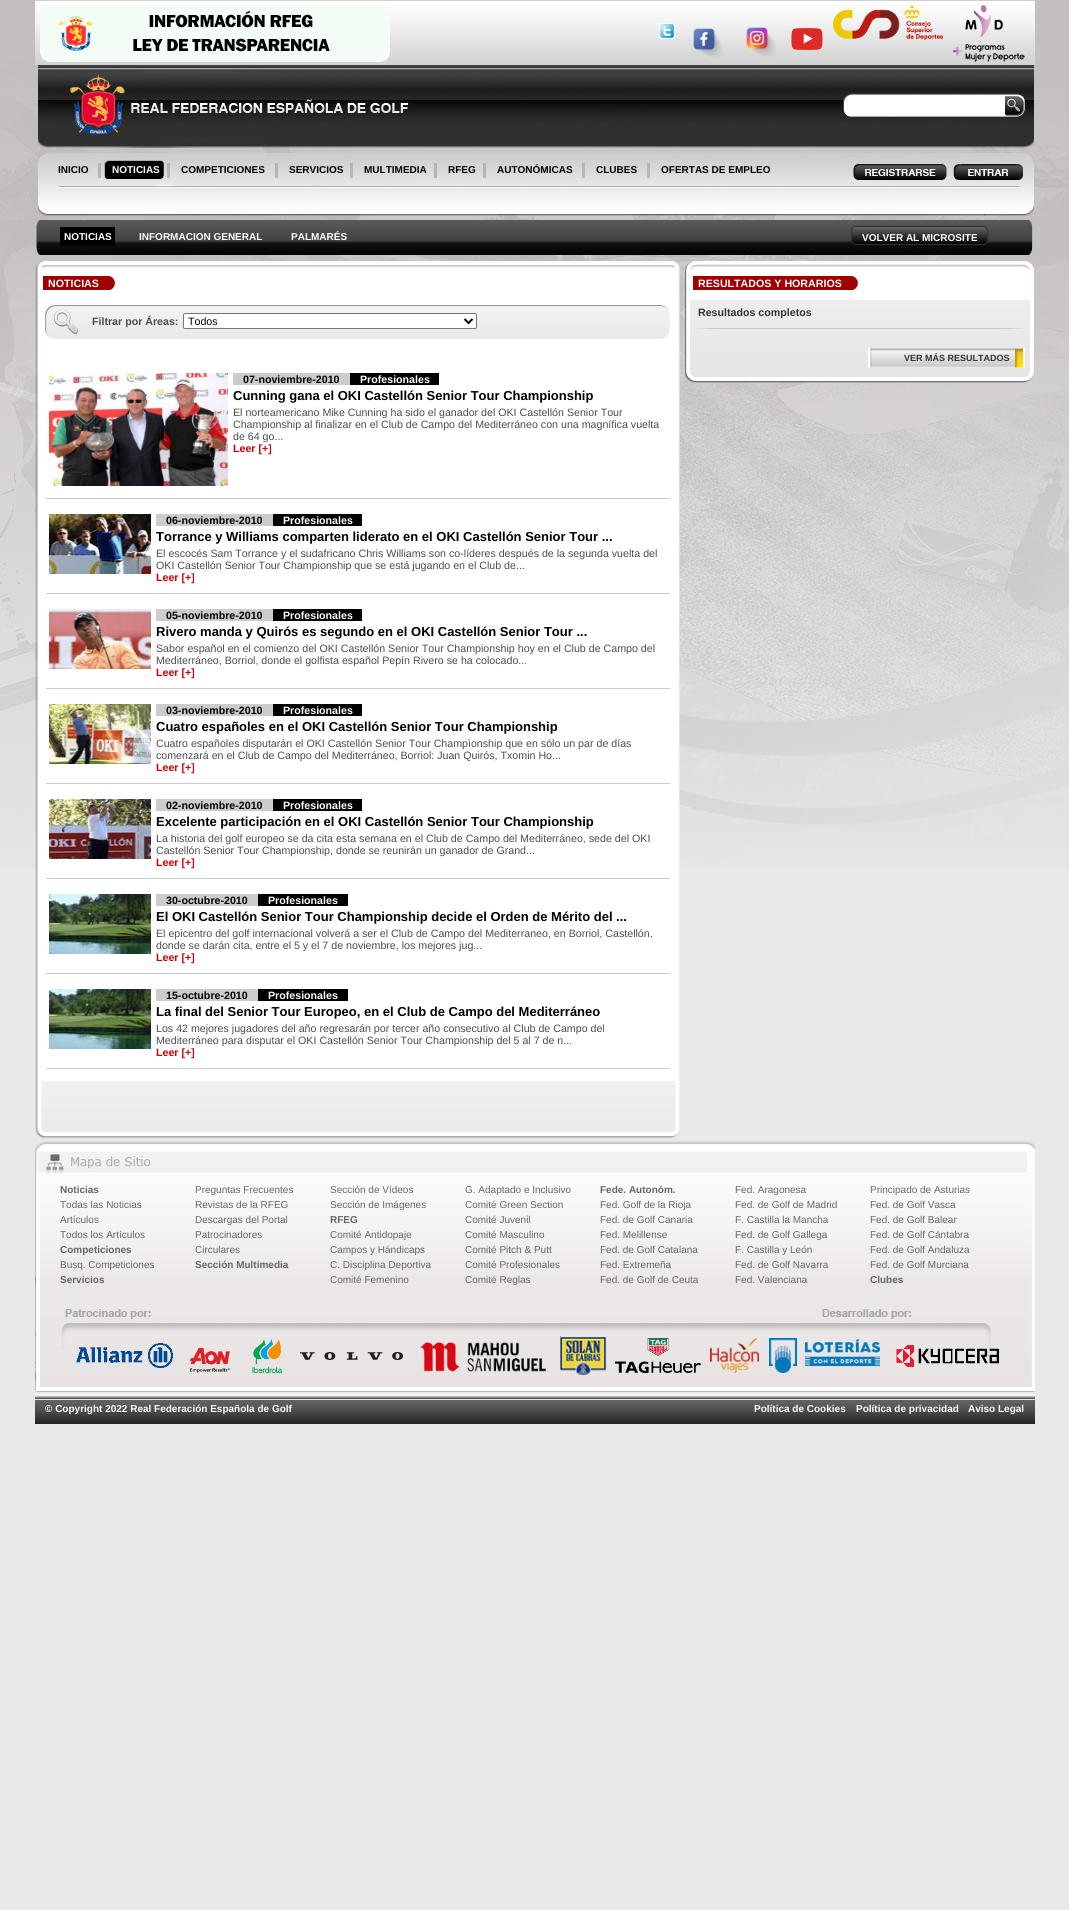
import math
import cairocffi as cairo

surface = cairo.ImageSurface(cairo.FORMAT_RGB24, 1069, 1910)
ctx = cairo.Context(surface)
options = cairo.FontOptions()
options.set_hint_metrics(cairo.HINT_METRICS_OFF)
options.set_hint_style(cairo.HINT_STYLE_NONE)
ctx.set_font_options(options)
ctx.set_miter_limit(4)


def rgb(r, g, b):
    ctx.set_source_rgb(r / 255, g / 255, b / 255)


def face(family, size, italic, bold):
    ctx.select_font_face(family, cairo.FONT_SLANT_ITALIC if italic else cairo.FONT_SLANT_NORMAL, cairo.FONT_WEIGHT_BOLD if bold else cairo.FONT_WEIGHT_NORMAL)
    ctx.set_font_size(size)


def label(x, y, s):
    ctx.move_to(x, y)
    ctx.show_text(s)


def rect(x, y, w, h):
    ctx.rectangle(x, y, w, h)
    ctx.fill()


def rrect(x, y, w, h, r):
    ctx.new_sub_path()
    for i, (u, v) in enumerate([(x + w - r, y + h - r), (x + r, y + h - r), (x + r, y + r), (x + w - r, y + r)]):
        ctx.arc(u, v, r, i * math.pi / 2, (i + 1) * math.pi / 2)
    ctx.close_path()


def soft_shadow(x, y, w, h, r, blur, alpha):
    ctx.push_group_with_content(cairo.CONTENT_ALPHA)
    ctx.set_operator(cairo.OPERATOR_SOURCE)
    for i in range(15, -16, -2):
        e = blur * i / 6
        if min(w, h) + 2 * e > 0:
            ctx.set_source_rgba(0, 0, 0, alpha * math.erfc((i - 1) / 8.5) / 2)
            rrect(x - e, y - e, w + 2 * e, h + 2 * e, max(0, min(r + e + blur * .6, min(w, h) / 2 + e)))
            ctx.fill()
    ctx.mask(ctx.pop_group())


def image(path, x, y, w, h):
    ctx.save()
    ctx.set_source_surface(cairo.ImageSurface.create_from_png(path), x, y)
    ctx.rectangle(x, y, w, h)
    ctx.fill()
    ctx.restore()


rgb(233, 233, 233)
ctx.paint()
image('image0.png', 0, 0, 1069, 868)
image('image1.png', 35, 0, 1000, 65)
image('image2.png', 40, 5, 350, 57)
image('image3.png', 659, 23, 16, 16)
image('image4.png', 693, 28, 30, 30)
image('image5.png', 746, 27, 30, 30)
image('image6.png', 791, 28, 32, 22)
image('image7.png', 833, 5, 110, 35)
image('image8.png', 953, 5, 72, 57)
image('image9.png', 38, 65, 996, 83)
image('image10.png', 70, 75, 339, 59)
image('image11.png', 843, 93, 182, 24)
image('image12.png', 1005, 96, 19, 20)
image('image13.png', 38, 153, 996, 63)
face('Liberation Sans', 10, 0, 1)
rgb(0, 0, 0)
label(58, 173, 'INICIO')
ctx.set_source_rgba(0.698, 0.686, 0.686, 0.85)
rect(98, 163, 3, 15)
image('image14.png', 104, 160, 60, 19)
rgb(255, 255, 255)
label(112, 173, 'NOTICIAS')
ctx.set_source_rgba(0.698, 0.686, 0.686, 0.85)
rect(167, 163, 3, 15)
rgb(0, 0, 0)
label(181, 173, 'COMPETICIONES')
ctx.set_source_rgba(0.698, 0.686, 0.686, 0.85)
rect(275, 163, 3, 15)
rgb(0, 0, 0)
label(289, 173, 'SERVICIOS')
ctx.set_source_rgba(0.698, 0.686, 0.686, 0.85)
rect(350, 163, 3, 15)
rgb(0, 0, 0)
label(364, 173, 'MULTIMEDIA')
ctx.set_source_rgba(0.698, 0.686, 0.686, 0.85)
rect(434, 163, 3, 15)
rgb(0, 0, 0)
label(448, 173, 'RFEG')
ctx.set_source_rgba(0.698, 0.686, 0.686, 0.85)
rect(483, 163, 3, 15)
rgb(0, 0, 0)
label(497, 173, 'AUTONÓMICAS')
ctx.set_source_rgba(0.698, 0.686, 0.686, 0.85)
rect(582, 163, 3, 15)
rgb(0, 0, 0)
label(596, 173, 'CLUBES')
ctx.set_source_rgba(0.698, 0.686, 0.686, 0.85)
rect(647, 163, 3, 15)
rgb(0, 0, 0)
label(661, 173, 'OFERTAS DE EMPLEO')
image('image15.png', 853, 164, 94, 16)
image('image16.png', 953, 164, 70, 16)
image('image17.png', 36, 220, 997, 35)
rect(60, 227, 55, 19)
rgb(255, 255, 255)
label(64, 240, 'NOTICIAS')
label(139, 240, 'INFORMACION GENERAL')
label(291, 240, 'PALMARÉS')
rgb(0, 0, 0)
soft_shadow(851, 227, 137, 19, 5, 1, 0.2)
ctx.save()
rrect(851, 226, 137, 19, 5)
ctx.clip()
gradient = cairo.LinearGradient(852, 227, 852, 244)
gradient.add_color_stop_rgba(0, 0.4, 0.4, 0.4, 1)
gradient.add_color_stop_rgba(1, 0, 0, 0, 1)
ctx.set_source(gradient)
rect(851, 227, 137, 17)
ctx.restore()
rrect(851.5, 226.5, 136, 18, 4.5)
rgb(51, 51, 51)
ctx.set_line_width(1)
ctx.stroke()
rgb(255, 255, 255)
label(862, 241, 'VOLVER AL MICROSITE')
image('image18.png', 35, 261, 645, 109)
image('image19.png', 43, 276, 74, 14)
face('Liberation Sans', 10.65, 0, 1)
label(48, 287, 'NOTICIAS')
image('image20.png', 45, 305, 625, 34)
rgb(76, 76, 76)
label(92, 325, 'Filtrar por Áreas:')
rgb(255, 255, 255)
rrect(183.5, 313.5, 293, 15, 1.5)
ctx.fill_preserve()
rgb(118, 118, 118)
ctx.stroke()
ctx.new_path()
ctx.move_to(464.5, 319)
ctx.line_to(468.5, 323)
ctx.line_to(472.5, 319)
rgb(0, 0, 0)
ctx.set_line_width(2)
ctx.stroke()
face('Liberation Sans', 10.65, 0, 0)
label(188, 325, 'Todos')
image('image21.png', 35, 370, 645, 711)
rgb(204, 204, 204)
rect(46, 498, 624, 1)
image('image22.png', 49, 373, 179, 113)
rect(233, 373, 117, 12)
face('Liberation Sans', 10.65, 0, 1)
rgb(0, 0, 0)
label(243, 383, '07-noviembre-2010')
rect(350, 373, 89, 12)
rgb(255, 255, 255)
label(360, 383, 'Profesionales')
face('Liberation Sans', 13, 0, 1)
rgb(0, 0, 0)
label(233, 400, 'Cunning gana el OKI Castellón Senior Tour Championship')
face('Liberation Sans', 10.65, 0, 0)
rgb(76, 76, 76)
label(233, 416, 'El norteamericano Mike Cunning ha sido el ganador del OKI Castellón Senior Tour')
label(233, 428, 'Championship al finalizar en el Club de Campo del Mediterráneo con una magnífica vuelta')
label(233, 440, 'de 64 go...')
face('Liberation Sans', 10.65, 0, 1)
rgb(204, 0, 0)
label(233, 452, 'Leer [+]')
rgb(204, 204, 204)
rect(46, 593, 624, 1)
image('image23.png', 49, 514, 102, 60)
rect(156, 514, 117, 12)
rgb(0, 0, 0)
label(166, 524, '06-noviembre-2010')
rect(273, 514, 89, 12)
rgb(255, 255, 255)
label(283, 524, 'Profesionales')
face('Liberation Sans', 13, 0, 1)
rgb(0, 0, 0)
label(156, 541, 'Torrance y Williams comparten liderato en el OKI Castellón Senior Tour ...')
face('Liberation Sans', 10.65, 0, 0)
rgb(76, 76, 76)
label(156, 557, 'El escocés Sam Torrance y el sudafricano Chris Williams son co-líderes después de la segunda vuelta del')
label(156, 569, 'OKI Castellón Senior Tour Championship que se está jugando en el Club de...')
face('Liberation Sans', 10.65, 0, 1)
rgb(204, 0, 0)
label(156, 581, 'Leer [+]')
rgb(204, 204, 204)
rect(46, 688, 624, 1)
image('image24.png', 49, 609, 102, 60)
rect(156, 609, 117, 12)
rgb(0, 0, 0)
label(166, 619, '05-noviembre-2010')
rect(273, 609, 89, 12)
rgb(255, 255, 255)
label(283, 619, 'Profesionales')
face('Liberation Sans', 13, 0, 1)
rgb(0, 0, 0)
label(156, 636, 'Rivero manda y Quirós es segundo en el OKI Castellón Senior Tour ...')
face('Liberation Sans', 10.65, 0, 0)
rgb(76, 76, 76)
label(156, 652, 'Sabor español en el comienzo del OKI Castellón Senior Tour Championship hoy en el Club de Campo del')
label(156, 664, 'Mediterráneo, Borriol, donde el golfista español Pepín Rivero se ha colocado...')
face('Liberation Sans', 10.65, 0, 1)
rgb(204, 0, 0)
label(156, 676, 'Leer [+]')
rgb(204, 204, 204)
rect(46, 783, 624, 1)
image('image25.png', 49, 704, 102, 60)
rect(156, 704, 117, 12)
rgb(0, 0, 0)
label(166, 714, '03-noviembre-2010')
rect(273, 704, 89, 12)
rgb(255, 255, 255)
label(283, 714, 'Profesionales')
face('Liberation Sans', 13, 0, 1)
rgb(0, 0, 0)
label(156, 731, 'Cuatro españoles en el OKI Castellón Senior Tour Championship')
face('Liberation Sans', 10.65, 0, 0)
rgb(76, 76, 76)
label(156, 747, 'Cuatro españoles disputarán el OKI Castellón Senior Tour Champìonship que en sólo un par de días')
label(156, 759, 'comenzará en el Club de Campo del Mediterráneo, Borriol: Juan Quirós, Txomin Ho...')
face('Liberation Sans', 10.65, 0, 1)
rgb(204, 0, 0)
label(156, 771, 'Leer [+]')
rgb(204, 204, 204)
rect(46, 878, 624, 1)
image('image26.png', 49, 799, 102, 60)
rect(156, 799, 117, 12)
rgb(0, 0, 0)
label(166, 809, '02-noviembre-2010')
rect(273, 799, 89, 12)
rgb(255, 255, 255)
label(283, 809, 'Profesionales')
face('Liberation Sans', 13, 0, 1)
rgb(0, 0, 0)
label(156, 826, 'Excelente participación en el OKI Castellón Senior Tour Championship')
face('Liberation Sans', 10.65, 0, 0)
rgb(76, 76, 76)
label(156, 842, 'La historia del golf europeo se da cita esta semana en el Club de Campo del Mediterráneo, sede del OKI')
label(156, 854, 'Castellón Senior Tour Championship, donde se reunirán un ganador de Grand...')
face('Liberation Sans', 10.65, 0, 1)
rgb(204, 0, 0)
label(156, 866, 'Leer [+]')
rgb(204, 204, 204)
rect(46, 973, 624, 1)
image('image27.png', 49, 894, 102, 60)
rect(156, 894, 102, 12)
rgb(0, 0, 0)
label(166, 904, '30-octubre-2010')
rect(258, 894, 90, 12)
rgb(255, 255, 255)
label(268, 904, 'Profesionales')
face('Liberation Sans', 13, 0, 1)
rgb(0, 0, 0)
label(156, 921, 'El OKI Castellón Senior Tour Championship decide el Orden de Mérito del ...')
face('Liberation Sans', 10.65, 0, 0)
rgb(76, 76, 76)
label(156, 937, 'El epicentro del golf internacional volverá a ser el Club de Campo del Mediterraneo, en Borriol, Castellón,')
label(156, 949, 'donde se darán cita, entre el 5 y el 7 de noviembre, los mejores jug...')
face('Liberation Sans', 10.65, 0, 1)
rgb(204, 0, 0)
label(156, 961, 'Leer [+]')
rgb(204, 204, 204)
rect(46, 1068, 624, 1)
image('image28.png', 49, 989, 102, 60)
rect(156, 989, 102, 12)
rgb(0, 0, 0)
label(166, 999, '15-octubre-2010')
rect(258, 989, 90, 12)
rgb(255, 255, 255)
label(268, 999, 'Profesionales')
face('Liberation Sans', 13, 0, 1)
rgb(0, 0, 0)
label(156, 1016, 'La final del Senior Tour Europeo, en el Club de Campo del Mediterráneo')
face('Liberation Sans', 10.65, 0, 0)
rgb(76, 76, 76)
label(156, 1032, 'Los 42 mejores jugadores del año regresarán por tercer año consecutivo al Club de Campo del')
label(156, 1044, 'Mediterráneo para disputar el OKI Castellón Senior Tour Championship del 5 al 7 de n...')
face('Liberation Sans', 10.65, 0, 1)
rgb(204, 0, 0)
label(156, 1056, 'Leer [+]')
image('image29.png', 35, 1081, 645, 58)
image('image30.png', 685, 261, 349, 39)
image('image31.png', 693, 276, 167, 14)
rgb(255, 255, 255)
label(698, 287, 'RESULTADOS Y HORARIOS')
image('image32.png', 685, 300, 349, 38)
image('image33.png', 696, 328, 331, 1)
rgb(51, 51, 51)
label(698, 316, 'Resultados completos')
image('image34.png', 685, 338, 349, 45)
image('image35.png', 868, 348, 157, 20)
face('Liberation Sans', 9, 0, 1)
label(904, 361, 'VER MÁS RESULTADOS')
image('image36.png', 35, 1141, 1000, 251)
face('Liberation Sans', 10, 0, 1)
rgb(102, 102, 102)
label(60, 1193, 'Noticias')
face('Liberation Sans', 10, 0, 0)
label(60, 1208, 'Todas las Noticias')
label(60, 1223, 'Artículos')
label(60, 1238, 'Todos los Artículos')
face('Liberation Sans', 10, 0, 1)
label(60, 1253, 'Competiciones')
face('Liberation Sans', 10, 0, 0)
label(60, 1268, 'Busq. Competiciones')
face('Liberation Sans', 10, 0, 1)
label(60, 1283, 'Servicios')
face('Liberation Sans', 10, 0, 0)
label(195, 1193, 'Preguntas Frecuentes')
label(195, 1208, 'Revistas de la RFEG')
label(195, 1223, 'Descargas del Portal')
label(195, 1238, 'Patrocinadores')
label(195, 1253, 'Circulares')
face('Liberation Sans', 10, 0, 1)
label(195, 1268, 'Sección Multimedia')
face('Liberation Sans', 10, 0, 0)
label(330, 1193, 'Sección de Vídeos')
label(330, 1208, 'Sección de Imágenes')
face('Liberation Sans', 10, 0, 1)
label(330, 1223, 'RFEG')
face('Liberation Sans', 10, 0, 0)
label(330, 1238, 'Comité Antidopaje')
label(330, 1253, 'Campos y Hándicaps')
label(330, 1268, 'C. Disciplina Deportiva')
label(330, 1283, 'Comité Femenino')
label(465, 1193, 'G. Adaptado e Inclusivo')
label(465, 1208, 'Comité Green Section')
label(465, 1223, 'Comité Juvenil')
label(465, 1238, 'Comité Masculino')
label(465, 1253, 'Comité Pitch & Putt')
label(465, 1268, 'Comité Profesionales')
label(465, 1283, 'Comité Reglas')
face('Liberation Sans', 10, 0, 1)
label(600, 1193, 'Fede. Autonóm.')
face('Liberation Sans', 10, 0, 0)
label(600, 1208, 'Fed. Golf de la Rioja')
label(600, 1223, 'Fed. de Golf Canaria')
label(600, 1238, 'Fed. Melillense')
label(600, 1253, 'Fed. de Golf Catalana')
label(600, 1268, 'Fed. Extremeña')
label(600, 1283, 'Fed. de Golf de Ceuta')
label(735, 1193, 'Fed. Aragonesa')
label(735, 1208, 'Fed. de Golf de Madrid')
label(735, 1223, 'F. Castilla la Mancha')
label(735, 1238, 'Fed. de Golf Gallega')
label(735, 1253, 'F. Castilla y León')
label(735, 1268, 'Fed. de Golf Navarra')
label(735, 1283, 'Fed. Valenciana')
label(870, 1193, 'Principado de Asturias')
label(870, 1208, 'Fed. de Golf Vasca')
label(870, 1223, 'Fed. de Golf Balear')
label(870, 1238, 'Fed. de Golf Cántabra')
label(870, 1253, 'Fed. de Golf Andaluza')
label(870, 1268, 'Fed. de Golf Murciana')
face('Liberation Sans', 10, 0, 1)
label(870, 1283, 'Clubes')
image('image37.png', 61, 1309, 930, 41)
image('image38.png', 76, 1343, 97, 25)
image('image39.png', 189, 1347, 41, 26)
image('image40.png', 252, 1338, 30, 36)
image('image41.png', 300, 1352, 103, 8)
image('image42.png', 420, 1342, 126, 30)
image('image43.png', 560, 1336, 47, 40)
image('image44.png', 615, 1338, 86, 35)
image('image45.png', 710, 1338, 49, 35)
image('image46.png', 769, 1338, 111, 35)
image('image47.png', 896, 1345, 103, 22)
image('image48.png', 35, 1394, 1000, 30)
rgb(255, 255, 255)
label(45, 1412, '© Copyright 2022 Real Federación Española de Golf')
label(754, 1412, 'Política de Cookies')
label(856, 1412, 'Política de privacidad')
label(968, 1412, 'Aviso Legal')
surface.write_to_png('render.png')
